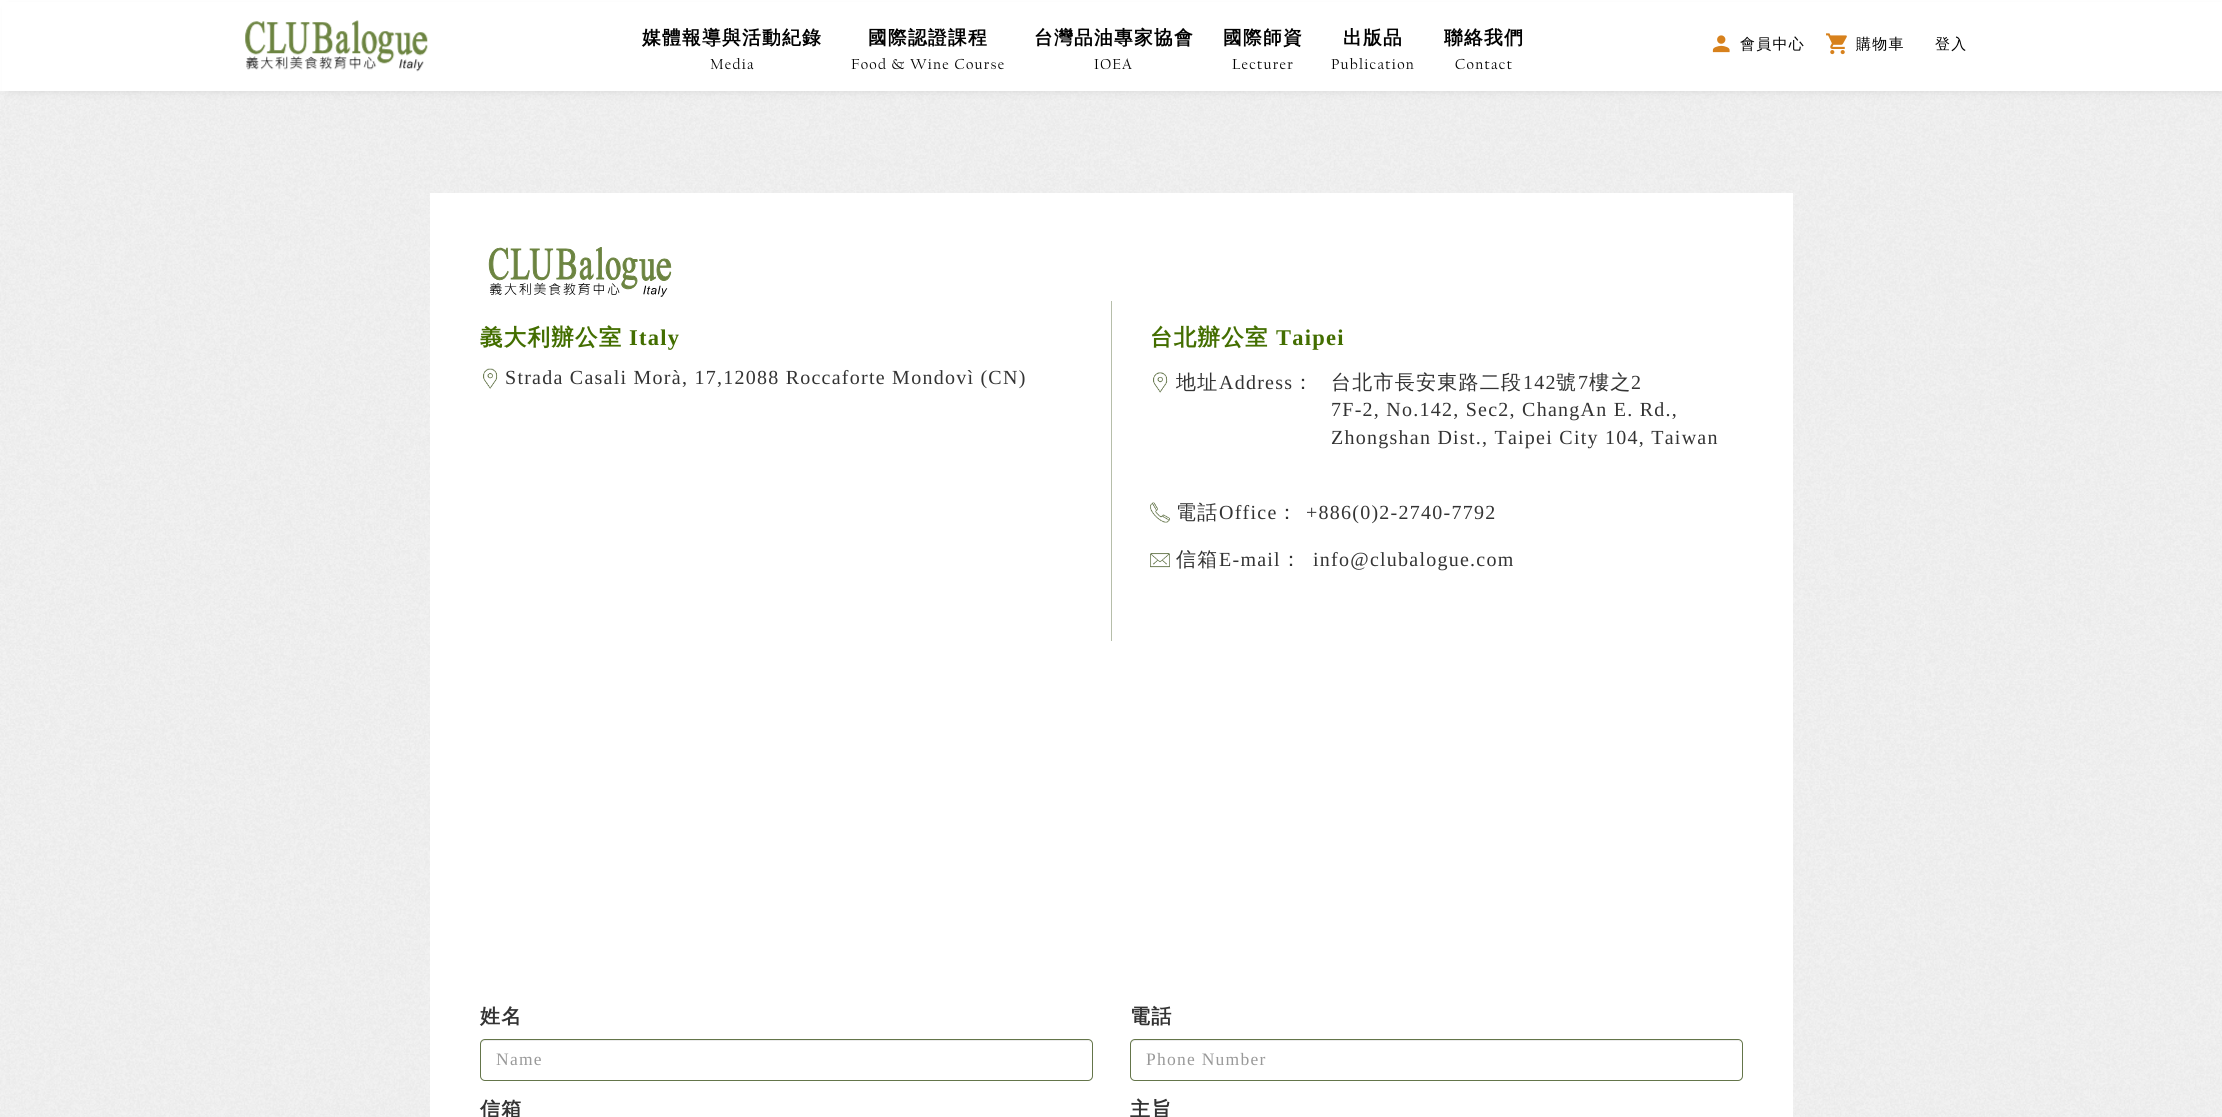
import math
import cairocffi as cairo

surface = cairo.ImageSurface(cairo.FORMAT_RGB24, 2222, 1117)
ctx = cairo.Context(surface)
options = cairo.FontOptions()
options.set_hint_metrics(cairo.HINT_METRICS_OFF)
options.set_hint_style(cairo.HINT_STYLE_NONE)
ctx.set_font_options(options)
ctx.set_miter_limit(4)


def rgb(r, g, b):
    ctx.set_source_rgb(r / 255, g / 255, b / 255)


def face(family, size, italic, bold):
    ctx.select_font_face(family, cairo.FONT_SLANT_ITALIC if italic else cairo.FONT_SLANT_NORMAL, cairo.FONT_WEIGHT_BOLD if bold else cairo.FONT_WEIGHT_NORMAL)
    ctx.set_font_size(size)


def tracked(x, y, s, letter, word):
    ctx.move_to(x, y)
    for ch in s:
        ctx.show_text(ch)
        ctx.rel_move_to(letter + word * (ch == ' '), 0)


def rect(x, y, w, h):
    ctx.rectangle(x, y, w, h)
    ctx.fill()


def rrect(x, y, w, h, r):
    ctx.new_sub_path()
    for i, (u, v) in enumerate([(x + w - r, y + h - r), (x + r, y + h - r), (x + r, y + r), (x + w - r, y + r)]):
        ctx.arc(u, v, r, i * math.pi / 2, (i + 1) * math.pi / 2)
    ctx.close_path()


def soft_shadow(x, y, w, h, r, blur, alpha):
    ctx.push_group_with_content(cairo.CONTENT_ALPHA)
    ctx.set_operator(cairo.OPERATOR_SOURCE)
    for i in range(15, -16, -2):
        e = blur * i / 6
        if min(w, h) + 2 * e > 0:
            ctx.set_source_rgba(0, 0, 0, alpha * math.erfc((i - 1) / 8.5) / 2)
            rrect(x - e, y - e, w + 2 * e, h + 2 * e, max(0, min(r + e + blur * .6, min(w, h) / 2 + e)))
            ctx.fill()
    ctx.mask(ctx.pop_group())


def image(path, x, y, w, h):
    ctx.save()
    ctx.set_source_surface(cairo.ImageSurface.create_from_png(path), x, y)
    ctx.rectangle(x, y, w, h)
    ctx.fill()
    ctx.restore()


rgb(255, 255, 255)
ctx.paint()
image('image3.png', 0, 91, 2222, 1026)
rgb(165, 165, 165)
soft_shadow(10, 10, 2210, 79, 0, 5, 0.5)
rgb(255, 255, 255)
rect(2, 2, 2220, 89)
image('image0.png', 245, 20, 183, 52)
face('WenQuanYi Zen Hei', 18.75, 0, 1)
rgb(1, 1, 1)
tracked(642, 44, '媒體報導與活動紀錄', 1.25, 0)
face('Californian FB', 15, 0, 0)
tracked(710, 69, 'Media', 1.25, 0)
face('WenQuanYi Zen Hei', 18.75, 0, 1)
tracked(868, 44, '國際認證課程', 1.25, 0)
face('Californian FB', 15, 0, 0)
tracked(851, 69, 'Food & Wine Course', 1.25, 0)
face('WenQuanYi Zen Hei', 18.75, 0, 1)
tracked(1034, 44, '台灣品油專家協會', 1.25, 0)
face('Californian FB', 15, 0, 0)
tracked(1094, 69, 'IOEA', 1.25, 0)
face('WenQuanYi Zen Hei', 18.75, 0, 1)
tracked(1223, 44, '國際師資', 1.25, 0)
face('Californian FB', 15, 0, 0)
tracked(1232, 69, 'Lecturer', 1.25, 0)
face('WenQuanYi Zen Hei', 18.75, 0, 1)
tracked(1343, 44, '出版品', 1.25, 0)
face('Californian FB', 15, 0, 0)
tracked(1331, 69, 'Publication', 1.25, 0)
face('WenQuanYi Zen Hei', 18.75, 0, 1)
tracked(1444, 44, '聯絡我們', 1.25, 0)
face('Californian FB', 15, 0, 0)
tracked(1455, 69, 'Contact', 1.25, 0)
image('image1.png', 1712, 35, 18, 18)
face('WenQuanYi Zen Hei Medium', 15, 0, 0)
tracked(1740, 49, '會員中心', 1.25, 0)
image('image2.png', 1826, 33, 21, 22)
tracked(1856, 49, '購物車', 1.25, 0)
tracked(1935, 49, '登入', 1.25, 0)
rgb(255, 255, 255)
rect(430, 193, 1363, 924)
image('image4.png', 488, 247, 184, 50)
face('WenQuanYi Zen Hei', 22.5, 0, 1)
rgb(67, 110, 0)
tracked(480, 345, '義大利辦公室', 1.25, 0)
face('Liberation Serif', 22.5, 0, 1)
tracked(629, 345, 'Italy', 1.25, 0)
image('image5.png', 483, 368, 15, 21)
face('Liberation Serif', 20, 0, 0)
rgb(51, 51, 51)
tracked(505, 384, 'Strada Casali Morà, 17,12088 Roccaforte Mondovì (CN)', 1.25, 0)
rgb(182, 190, 170)
rect(1111, 301, 1, 340)
face('WenQuanYi Zen Hei', 22.5, 0, 1)
rgb(67, 110, 0)
tracked(1150, 345, '台北辦公室', 1.25, 0)
face('Liberation Serif', 22.5, 0, 1)
tracked(1276, 345, 'Taipei', 1.25, 0)
image('image6.png', 1153, 372, 15, 21)
face('WenQuanYi Zen Hei Medium', 20, 0, 0)
rgb(51, 51, 51)
tracked(1176, 389, '地址', 1.25, 0)
face('Liberation Serif', 20, 0, 0)
tracked(1219, 389, 'Address', 1.25, 0)
face('WenQuanYi Zen Hei Medium', 20, 0, 0)
tracked(1293, 389, '：', 1.25, 0)
tracked(1331, 389, '台北市長安東路二段', 1.25, 0)
face('Liberation Serif', 20, 0, 0)
tracked(1523, 389, '142', 1.25, 0)
face('WenQuanYi Zen Hei Medium', 20, 0, 0)
tracked(1556, 389, '號', 1.25, 0)
face('Liberation Serif', 20, 0, 0)
tracked(1578, 389, '7', 1.25, 0)
face('WenQuanYi Zen Hei Medium', 20, 0, 0)
tracked(1589, 389, '樓之', 1.25, 0)
face('Liberation Serif', 20, 0, 0)
tracked(1631, 389, '2', 1.25, 0)
tracked(1331, 416, '7F-2, No.142, Sec2, ChangAn E. Rd.,', 1.25, 0)
tracked(1331, 444, 'Zhongshan Dist., Taipei City 104, Taiwan', 1.25, 0)
image('image7.png', 1150, 502, 20, 21)
face('WenQuanYi Zen Hei Medium', 20, 0, 0)
tracked(1176, 519, '電話', 1.25, 0)
face('Liberation Serif', 20, 0, 0)
tracked(1219, 519, 'Office', 1.25, 0)
face('WenQuanYi Zen Hei Medium', 20, 0, 0)
tracked(1277, 519, '：', 1.25, 0)
face('Liberation Serif', 20, 0, 0)
tracked(1306, 519, '+886(0)2-2740-7792', 1.25, 0)
image('image8.png', 1150, 553, 20, 15)
face('WenQuanYi Zen Hei Medium', 20, 0, 0)
tracked(1176, 566, '信箱', 1.25, 0)
face('Liberation Serif', 20, 0, 0)
tracked(1219, 566, 'E-mail', 1.25, 0)
face('WenQuanYi Zen Hei Medium', 20, 0, 0)
tracked(1281, 566, '：', 1.25, 0)
face('Liberation Serif', 20, 0, 0)
tracked(1313, 566, 'info@clubalogue.com', 1.25, 0)
face('WenQuanYi Zen Hei', 20, 0, 1)
tracked(480, 1023, '姓名', 1.25, 0)
rgb(236, 236, 236)
ctx.new_path()
ctx.move_to(485, 1041)
ctx.line_to(1088, 1041)
ctx.curve_to(1090, 1041, 1091, 1043, 1091, 1045)
ctx.line_to(1091, 1044)
ctx.curve_to(1091, 1042, 1089, 1040, 1087, 1040)
ctx.line_to(485, 1040)
ctx.curve_to(483, 1040, 481, 1042, 481, 1044)
ctx.line_to(481, 1045)
ctx.curve_to(481, 1043, 483, 1041, 485, 1041)
ctx.close_path()
ctx.fill()
rrect(480.5, 1039.5, 612, 41, 4.5)
rgb(100, 117, 74)
ctx.set_line_width(1)
ctx.stroke()
face('Liberation Serif', 17.5, 0, 0)
rgb(153, 153, 153)
tracked(496, 1065, 'Name', 1.25, 0)
face('WenQuanYi Zen Hei', 20, 0, 1)
rgb(51, 51, 51)
tracked(1130, 1023, '電話', 1.25, 0)
rgb(236, 236, 236)
ctx.new_path()
ctx.move_to(1135, 1041)
ctx.line_to(1738, 1041)
ctx.curve_to(1740, 1041, 1741, 1043, 1741, 1045)
ctx.line_to(1741, 1044)
ctx.curve_to(1741, 1042, 1739, 1040, 1737, 1040)
ctx.line_to(1135, 1040)
ctx.curve_to(1133, 1040, 1131, 1042, 1131, 1044)
ctx.line_to(1131, 1045)
ctx.curve_to(1131, 1043, 1133, 1041, 1135, 1041)
ctx.close_path()
ctx.fill()
rrect(1130.5, 1039.5, 612, 41, 4.5)
rgb(100, 117, 74)
ctx.stroke()
face('Liberation Serif', 17.5, 0, 0)
rgb(153, 153, 153)
tracked(1146, 1065, 'Phone Number', 1.25, 0)
face('WenQuanYi Zen Hei', 20, 0, 1)
rgb(51, 51, 51)
tracked(480, 1116, '信箱', 1.25, 0)
tracked(1130, 1116, '主旨', 1.25, 0)
surface.write_to_png('render.png')
